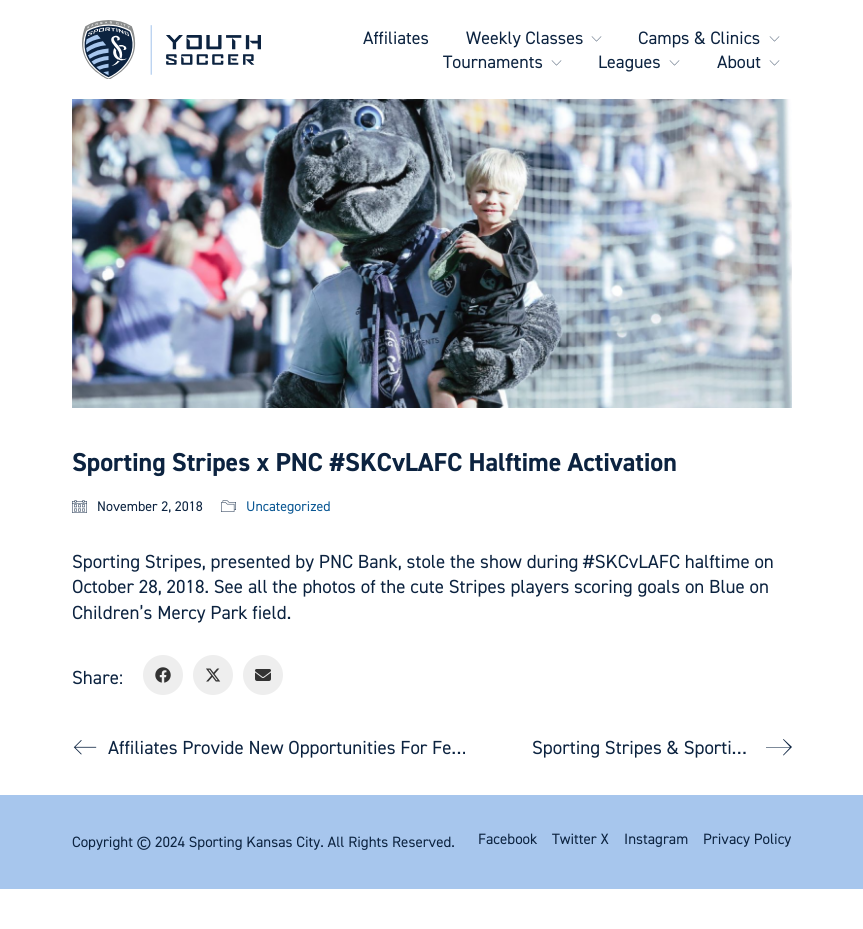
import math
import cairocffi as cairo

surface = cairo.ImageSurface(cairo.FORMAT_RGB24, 863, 929)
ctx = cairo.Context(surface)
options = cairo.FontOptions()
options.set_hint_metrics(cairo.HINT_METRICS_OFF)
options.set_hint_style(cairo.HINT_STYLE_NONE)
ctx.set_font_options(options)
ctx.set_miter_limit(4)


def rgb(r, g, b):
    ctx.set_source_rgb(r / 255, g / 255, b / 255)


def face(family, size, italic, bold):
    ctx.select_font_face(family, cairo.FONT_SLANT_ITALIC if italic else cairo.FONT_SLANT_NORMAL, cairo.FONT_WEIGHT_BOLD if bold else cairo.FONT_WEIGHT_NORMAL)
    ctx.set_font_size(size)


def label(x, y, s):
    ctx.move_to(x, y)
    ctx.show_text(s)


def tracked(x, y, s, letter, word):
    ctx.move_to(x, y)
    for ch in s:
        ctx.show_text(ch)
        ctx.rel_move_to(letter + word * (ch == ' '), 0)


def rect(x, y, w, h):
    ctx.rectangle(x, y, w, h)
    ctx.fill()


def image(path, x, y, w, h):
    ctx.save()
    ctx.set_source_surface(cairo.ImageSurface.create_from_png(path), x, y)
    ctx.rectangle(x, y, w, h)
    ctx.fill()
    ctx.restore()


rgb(255, 255, 255)
ctx.paint()
image('image0.png', 82, 20, 179, 59)
face('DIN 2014', 18, 0, 0)
rgb(12, 35, 64)
label(363, 44, 'Affiliates')
label(466, 44, 'Weekly Classes')
image('image1.png', 591, 36, 11, 6)
label(638, 44, 'Camps & Clinics')
image('image1.png', 769, 36, 11, 6)
label(443, 68, 'Tournaments')
image('image1.png', 551, 60, 11, 6)
label(598, 68, 'Leagues')
image('image1.png', 669, 60, 11, 6)
label(717, 68, 'About')
image('image1.png', 769, 60, 11, 6)
image('image2.png', 72, 99, 720, 309)
face('DIN 2014', 26, 0, 1)
tracked(72, 471, 'Sporting Stripes x PNC #SKCvLAFC Halftime Activation', -0.13, 0)
image('image3.png', 72, 500, 15, 13)
face('DIN 2014', 14, 0, 0)
label(97, 511, 'November 2, 2018')
image('image4.png', 221, 500, 15, 12)
rgb(10, 87, 147)
label(246, 511, 'Uncategorized')
face('DIN 2014', 19, 0, 0)
rgb(12, 35, 64)
label(72, 568, 'Sporting Stripes, presented by PNC Bank, stole the show during #SKCvLAFC halftime on')
label(72, 593, 'October 28, 2018. See all the photos of the cute Stripes players scoring goals on Blue on')
label(72, 619, 'Children’s Mercy Park field.')
label(72, 684, 'Share:')
rgb(238, 238, 238)
ctx.new_path()
ctx.arc(163, 675, 20, 0, 2 * math.pi)
ctx.fill()
image('image5.png', 155, 667, 16, 16)
ctx.arc(213, 675, 20, 0, 2 * math.pi)
ctx.fill()
image('image6.png', 206, 668, 15, 14)
ctx.arc(263, 675, 20, 0, 2 * math.pi)
ctx.fill()
image('image7.png', 255, 669, 16, 12)
image('image8.png', 73, 740, 24, 15)
rgb(12, 35, 64)
label(108, 754, 'Affiliates Provide New Opportunities For Fe…')
label(532, 754, 'Sporting Stripes & Sporti…')
ctx.new_path()
ctx.move_to(783.5, 739)
ctx.line_to(783, 739.5)
ctx.line_to(790, 747)
ctx.line_to(766, 747)
ctx.line_to(766, 747.5)
ctx.line_to(790, 747.5)
ctx.line_to(783, 755)
ctx.line_to(783.5, 755.5)
ctx.line_to(792, 747)
ctx.close_path()
ctx.fill()
rgb(167, 198, 237)
rect(0, 795, 863, 94)
face('DIN 2014', 15, 0, 0)
rgb(12, 35, 64)
label(72, 847, 'Copyright © 2024 Sporting Kansas City. All Rights Reserved.')
label(478, 844, 'Facebook')
label(552, 844, 'Twitter X')
label(624, 844, 'Instagram')
label(703, 844, 'Privacy Policy')
surface.write_to_png('render.png')
